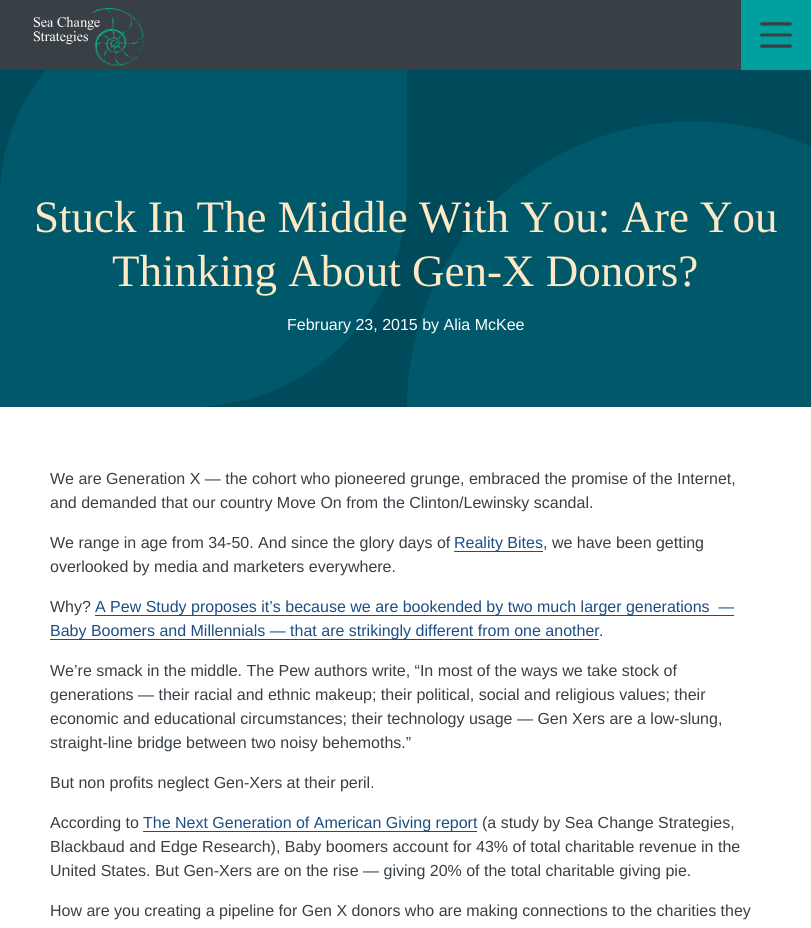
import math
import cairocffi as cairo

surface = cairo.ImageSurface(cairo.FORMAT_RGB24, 811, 928)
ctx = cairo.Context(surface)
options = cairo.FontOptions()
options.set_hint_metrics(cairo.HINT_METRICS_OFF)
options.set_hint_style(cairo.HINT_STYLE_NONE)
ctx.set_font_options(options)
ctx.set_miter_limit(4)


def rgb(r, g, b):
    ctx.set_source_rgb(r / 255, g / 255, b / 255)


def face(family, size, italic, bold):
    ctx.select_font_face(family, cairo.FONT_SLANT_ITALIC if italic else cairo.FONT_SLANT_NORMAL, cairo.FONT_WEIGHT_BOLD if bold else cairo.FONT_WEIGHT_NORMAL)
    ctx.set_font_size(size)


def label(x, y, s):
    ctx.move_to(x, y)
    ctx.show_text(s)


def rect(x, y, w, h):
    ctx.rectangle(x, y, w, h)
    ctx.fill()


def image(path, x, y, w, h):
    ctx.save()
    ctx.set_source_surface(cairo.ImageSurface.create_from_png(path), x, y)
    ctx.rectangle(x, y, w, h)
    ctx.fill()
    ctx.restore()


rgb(255, 255, 255)
ctx.paint()
rgb(0, 75, 91)
rect(0, 70, 811, 337)
rgb(0, 88, 107)
ctx.set_fill_rule(cairo.FILL_RULE_EVEN_ODD)
ctx.new_path()
ctx.move_to(407, 0)
ctx.line_to(407, 190)
ctx.curve_to(407, 310, 310, 407, 190, 407)
ctx.line_to(0, 407)
ctx.line_to(0, 197)
ctx.curve_to(0, 88, 88, 0, 197, 0)
ctx.close_path()
ctx.fill()
rgb(56, 63, 69)
rect(0, 0, 741, 70)
image('image0.png', 33, 8, 111, 58)
rgb(0, 160, 159)
rect(741, 0, 70, 70)
image('image1.png', 760, 22, 32, 26)
ctx.save()
ctx.set_fill_rule(cairo.FILL_RULE_WINDING)
ctx.rectangle(0, 0, 811, 407)
ctx.clip()
rgb(0, 88, 107)
ctx.arc(693, 407.5, 286, 0, 2 * math.pi)
ctx.fill()
ctx.restore()
face('Liberation Serif', 45, 0, 0)
rgb(255, 233, 196)
label(34, 232, 'Stuck In The Middle With You: Are You')
label(112, 286, 'Thinking About Gen-X Donors?')
face('Liberation Sans', 16, 0, 0)
rgb(255, 255, 255)
label(287, 330, 'February 23, 2015 by Alia McKee')
rgb(56, 63, 69)
label(50, 484, 'We are Generation X — the cohort who pioneered grunge, embraced the promise of the Internet,')
label(50, 508, 'and demanded that our country Move On from the Clinton/Lewinsky scandal.')
label(50, 548, 'We range in age from 34-50. And since the glory days of')
rgb(28, 77, 132)
rect(454, 551, 89, 1)
label(454, 548, 'Reality Bites')
rgb(56, 63, 69)
label(543, 548, ', we have been getting')
label(50, 572, 'overlooked by media and marketers everywhere.')
label(50, 612, 'Why?')
rgb(28, 77, 132)
rect(95, 615, 639, 1)
label(95, 612, 'A Pew Study proposes it’s because we are bookended by two much larger generations  —')
rect(50, 639, 549, 1)
label(50, 636, 'Baby Boomers and Millennials — that are strikingly different from one another')
rgb(56, 63, 69)
label(599, 636, '.')
label(50, 676, 'We’re smack in the middle. The Pew authors write, “In most of the ways we take stock of')
label(50, 700, 'generations — their racial and ethnic makeup; their political, social and religious values; their')
label(50, 724, 'economic and educational circumstances; their technology usage — Gen Xers are a low-slung,')
label(50, 748, 'straight-line bridge between two noisy behemoths.”')
label(50, 788, 'But non profits neglect Gen-Xers at their peril.')
label(50, 828, 'According to')
rgb(28, 77, 132)
rect(143, 831, 334, 1)
label(143, 828, 'The Next Generation of American Giving report')
rgb(56, 63, 69)
label(482, 828, '(a study by Sea Change Strategies,')
label(50, 852, 'Blackbaud and Edge Research), Baby boomers account for 43% of total charitable revenue in the')
label(50, 876, 'United States. But Gen-Xers are on the rise — giving 20% of the total charitable giving pie.')
label(50, 916, 'How are you creating a pipeline for Gen X donors who are making connections to the charities they')
surface.write_to_png('render.png')
